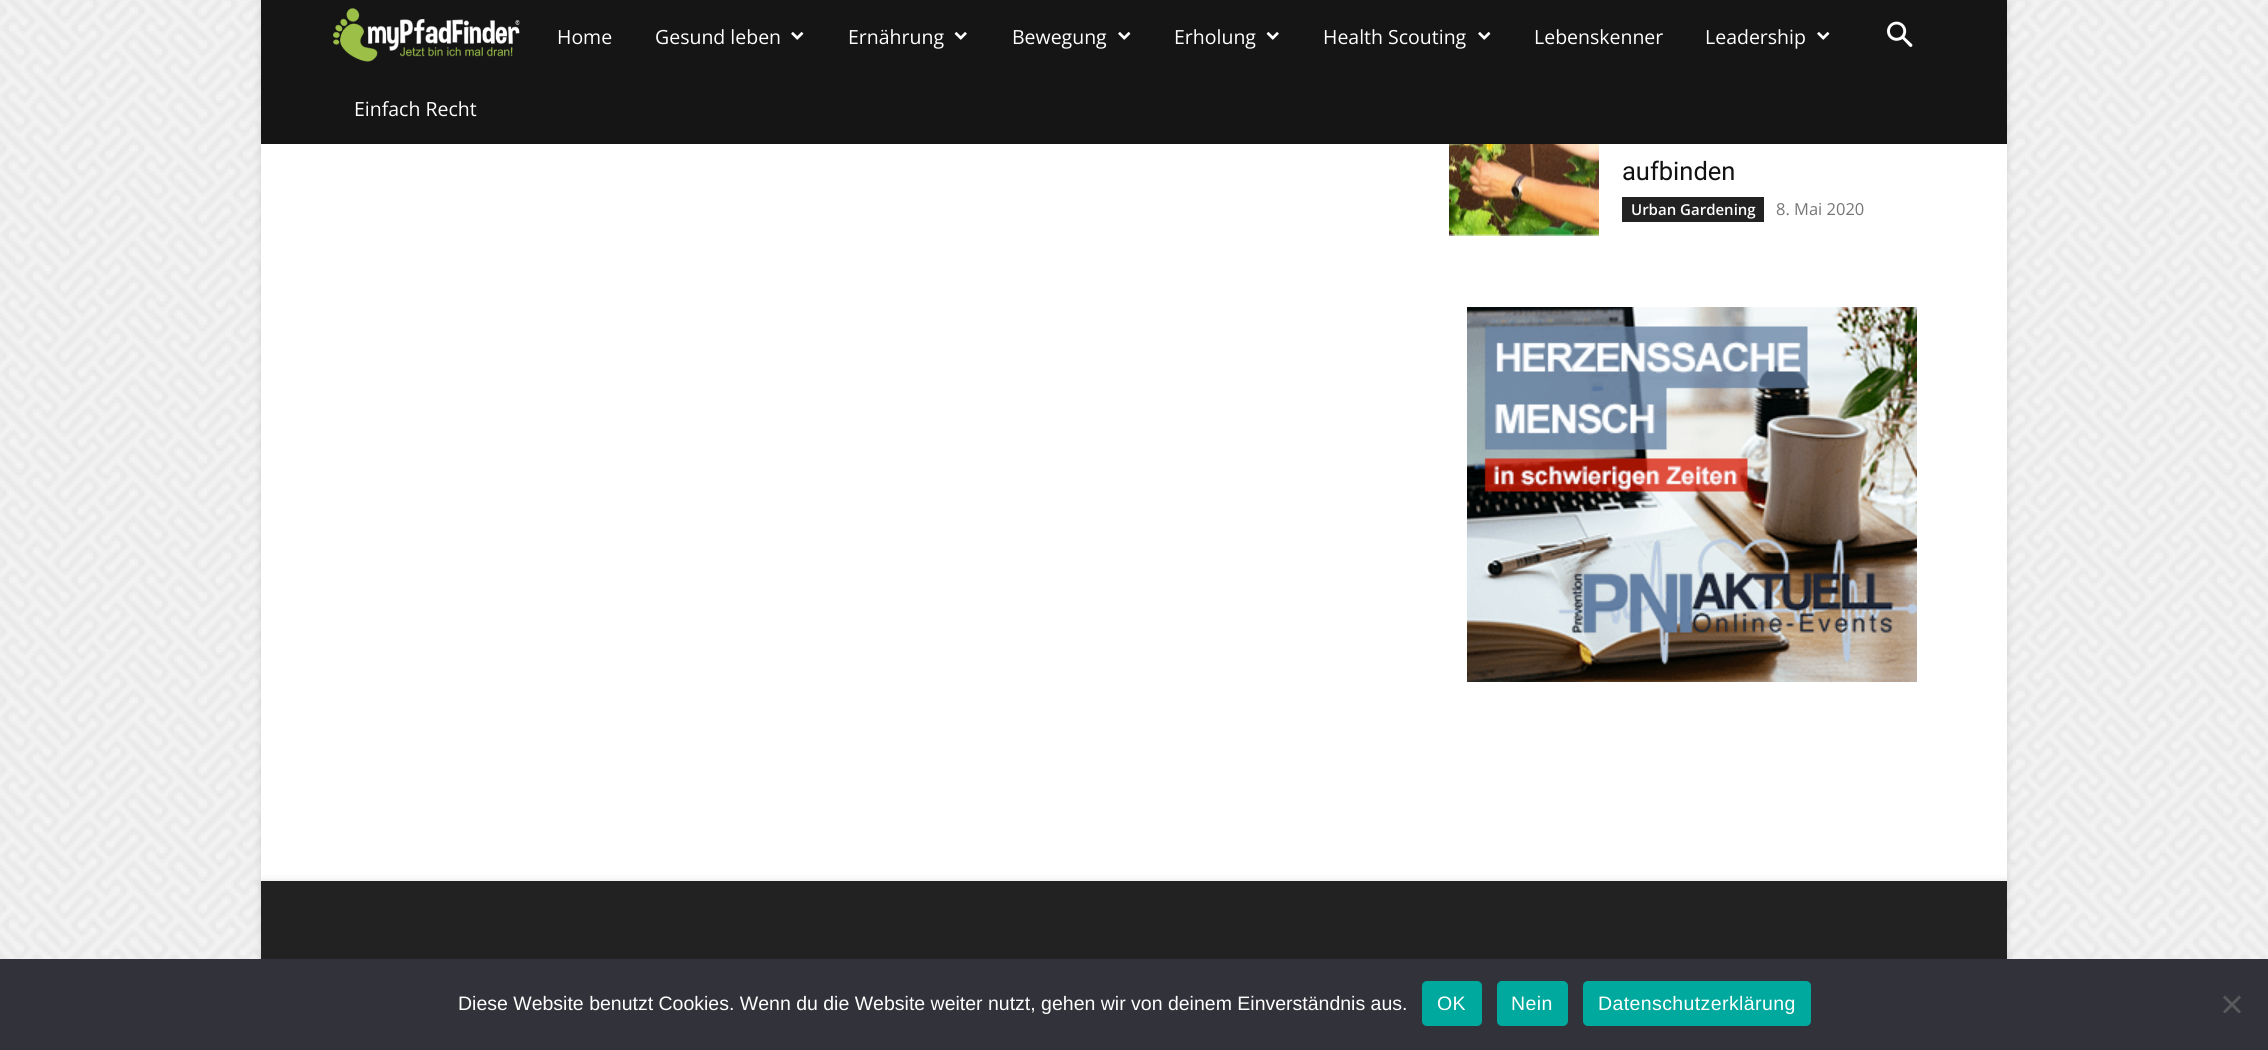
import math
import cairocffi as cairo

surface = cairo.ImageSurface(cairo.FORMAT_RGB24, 2268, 1050)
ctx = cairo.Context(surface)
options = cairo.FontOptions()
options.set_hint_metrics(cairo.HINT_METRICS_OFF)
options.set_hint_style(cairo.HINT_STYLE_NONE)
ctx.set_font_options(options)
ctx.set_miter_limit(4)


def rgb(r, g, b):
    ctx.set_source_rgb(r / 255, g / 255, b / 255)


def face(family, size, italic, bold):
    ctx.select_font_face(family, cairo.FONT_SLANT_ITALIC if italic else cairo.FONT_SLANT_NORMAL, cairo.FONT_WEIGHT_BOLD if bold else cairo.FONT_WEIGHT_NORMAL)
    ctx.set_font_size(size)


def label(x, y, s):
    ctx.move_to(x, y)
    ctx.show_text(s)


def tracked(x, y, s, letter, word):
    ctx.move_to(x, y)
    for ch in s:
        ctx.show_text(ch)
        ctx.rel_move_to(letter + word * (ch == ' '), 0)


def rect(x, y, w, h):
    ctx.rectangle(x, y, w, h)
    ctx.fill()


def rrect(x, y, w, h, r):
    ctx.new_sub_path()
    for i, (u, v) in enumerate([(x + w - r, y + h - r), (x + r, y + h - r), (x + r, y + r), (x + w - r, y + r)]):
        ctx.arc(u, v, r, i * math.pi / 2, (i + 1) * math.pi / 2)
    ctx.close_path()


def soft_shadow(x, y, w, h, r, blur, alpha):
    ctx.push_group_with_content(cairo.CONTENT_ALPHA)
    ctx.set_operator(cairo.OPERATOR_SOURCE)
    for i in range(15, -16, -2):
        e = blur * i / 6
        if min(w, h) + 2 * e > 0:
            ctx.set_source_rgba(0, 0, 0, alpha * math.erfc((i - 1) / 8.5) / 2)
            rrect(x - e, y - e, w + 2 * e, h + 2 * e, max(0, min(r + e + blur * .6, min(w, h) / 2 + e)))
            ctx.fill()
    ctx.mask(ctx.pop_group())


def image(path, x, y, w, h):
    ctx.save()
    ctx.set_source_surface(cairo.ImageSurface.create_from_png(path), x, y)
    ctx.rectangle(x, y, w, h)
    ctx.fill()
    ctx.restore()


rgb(255, 255, 255)
ctx.paint()
image('image0.png', 0, 0, 2268, 959)
rgb(0, 0, 0)
soft_shadow(261, -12, 1746, 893, 0, 4, 0.12)
rgb(21, 21, 21)
rect(261, 0, 1746, 144)
image('image1.png', 333, 8, 187, 54)
face('Open Sans', 19.5, 0, 0)
rgb(255, 255, 255)
label(557, 44, 'Home')
label(655, 44, 'Gesund leben')
image('image2.png', 791, 32, 13, 8)
label(848, 44, 'Ernährung')
image('image3.png', 954, 32, 13, 8)
label(1012, 44, 'Bewegung')
image('image2.png', 1118, 32, 13, 8)
label(1174, 44, 'Erholung')
image('image3.png', 1266, 32, 13, 8)
label(1323, 44, 'Health Scouting')
image('image2.png', 1478, 32, 13, 8)
label(1534, 44, 'Lebenskenner')
label(1705, 44, 'Leadership')
image('image2.png', 1817, 32, 13, 8)
label(354, 116, 'Einfach Recht')
image('image4.png', 1887, 21, 26, 26)
rect(261, 144, 1746, 737)
image('image5.png', 1449, 144, 150, 92)
face('Roboto', 25.5, 0, 0)
rgb(17, 17, 17)
label(1622, 180, 'aufbinden')
rgb(34, 34, 34)
rect(1622, 197, 142, 25)
face('Open Sans SemiBold', 15, 0, 0)
rgb(255, 255, 255)
label(1631, 215, 'Urban Gardening')
face('Open Sans', 16.5, 0, 0)
rgb(118, 118, 118)
label(1776, 215, '8. Mai 2020')
image('image6.png', 1467, 307, 450, 375)
rgb(0, 0, 0)
soft_shadow(261, 881, 1746, 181, 0, 4, 0.12)
rgb(34, 34, 34)
rect(261, 881, 1746, 78)
rgb(50, 50, 58)
rect(0, 959, 2268, 91)
face('Liberation Sans', 19.5, 0, 0)
rgb(255, 255, 255)
label(458, 1010, 'Diese Website benutzt Cookies. Wenn du die Website weiter nutzt, gehen wir von deinem Einverständnis aus.')
rgb(0, 169, 157)
rrect(1422, 981, 60, 45, 5)
ctx.fill()
rgb(255, 255, 255)
tracked(1437, 1010, 'OK', 0.4, 0)
rgb(0, 169, 157)
rrect(1497, 981, 71, 45, 5)
ctx.fill()
rgb(255, 255, 255)
tracked(1511, 1010, 'Nein', 0.4, 0)
rgb(0, 169, 157)
rrect(1583, 981, 228, 45, 5)
ctx.fill()
rgb(255, 255, 255)
tracked(1598, 1010, 'Datenschutzerklärung', 0.4, 0)
rgb(89, 89, 93)
ctx.new_path()
ctx.move_to(2239, 995.5)
ctx.line_to(2241, 997.5)
ctx.line_to(2225, 1013.5)
ctx.line_to(2223, 1011.5)
ctx.close_path()
ctx.fill()
ctx.new_path()
ctx.move_to(2223, 997.5)
ctx.line_to(2225, 995.5)
ctx.line_to(2241, 1011.5)
ctx.line_to(2239, 1013.5)
ctx.close_path()
ctx.fill()
surface.write_to_png('render.png')
